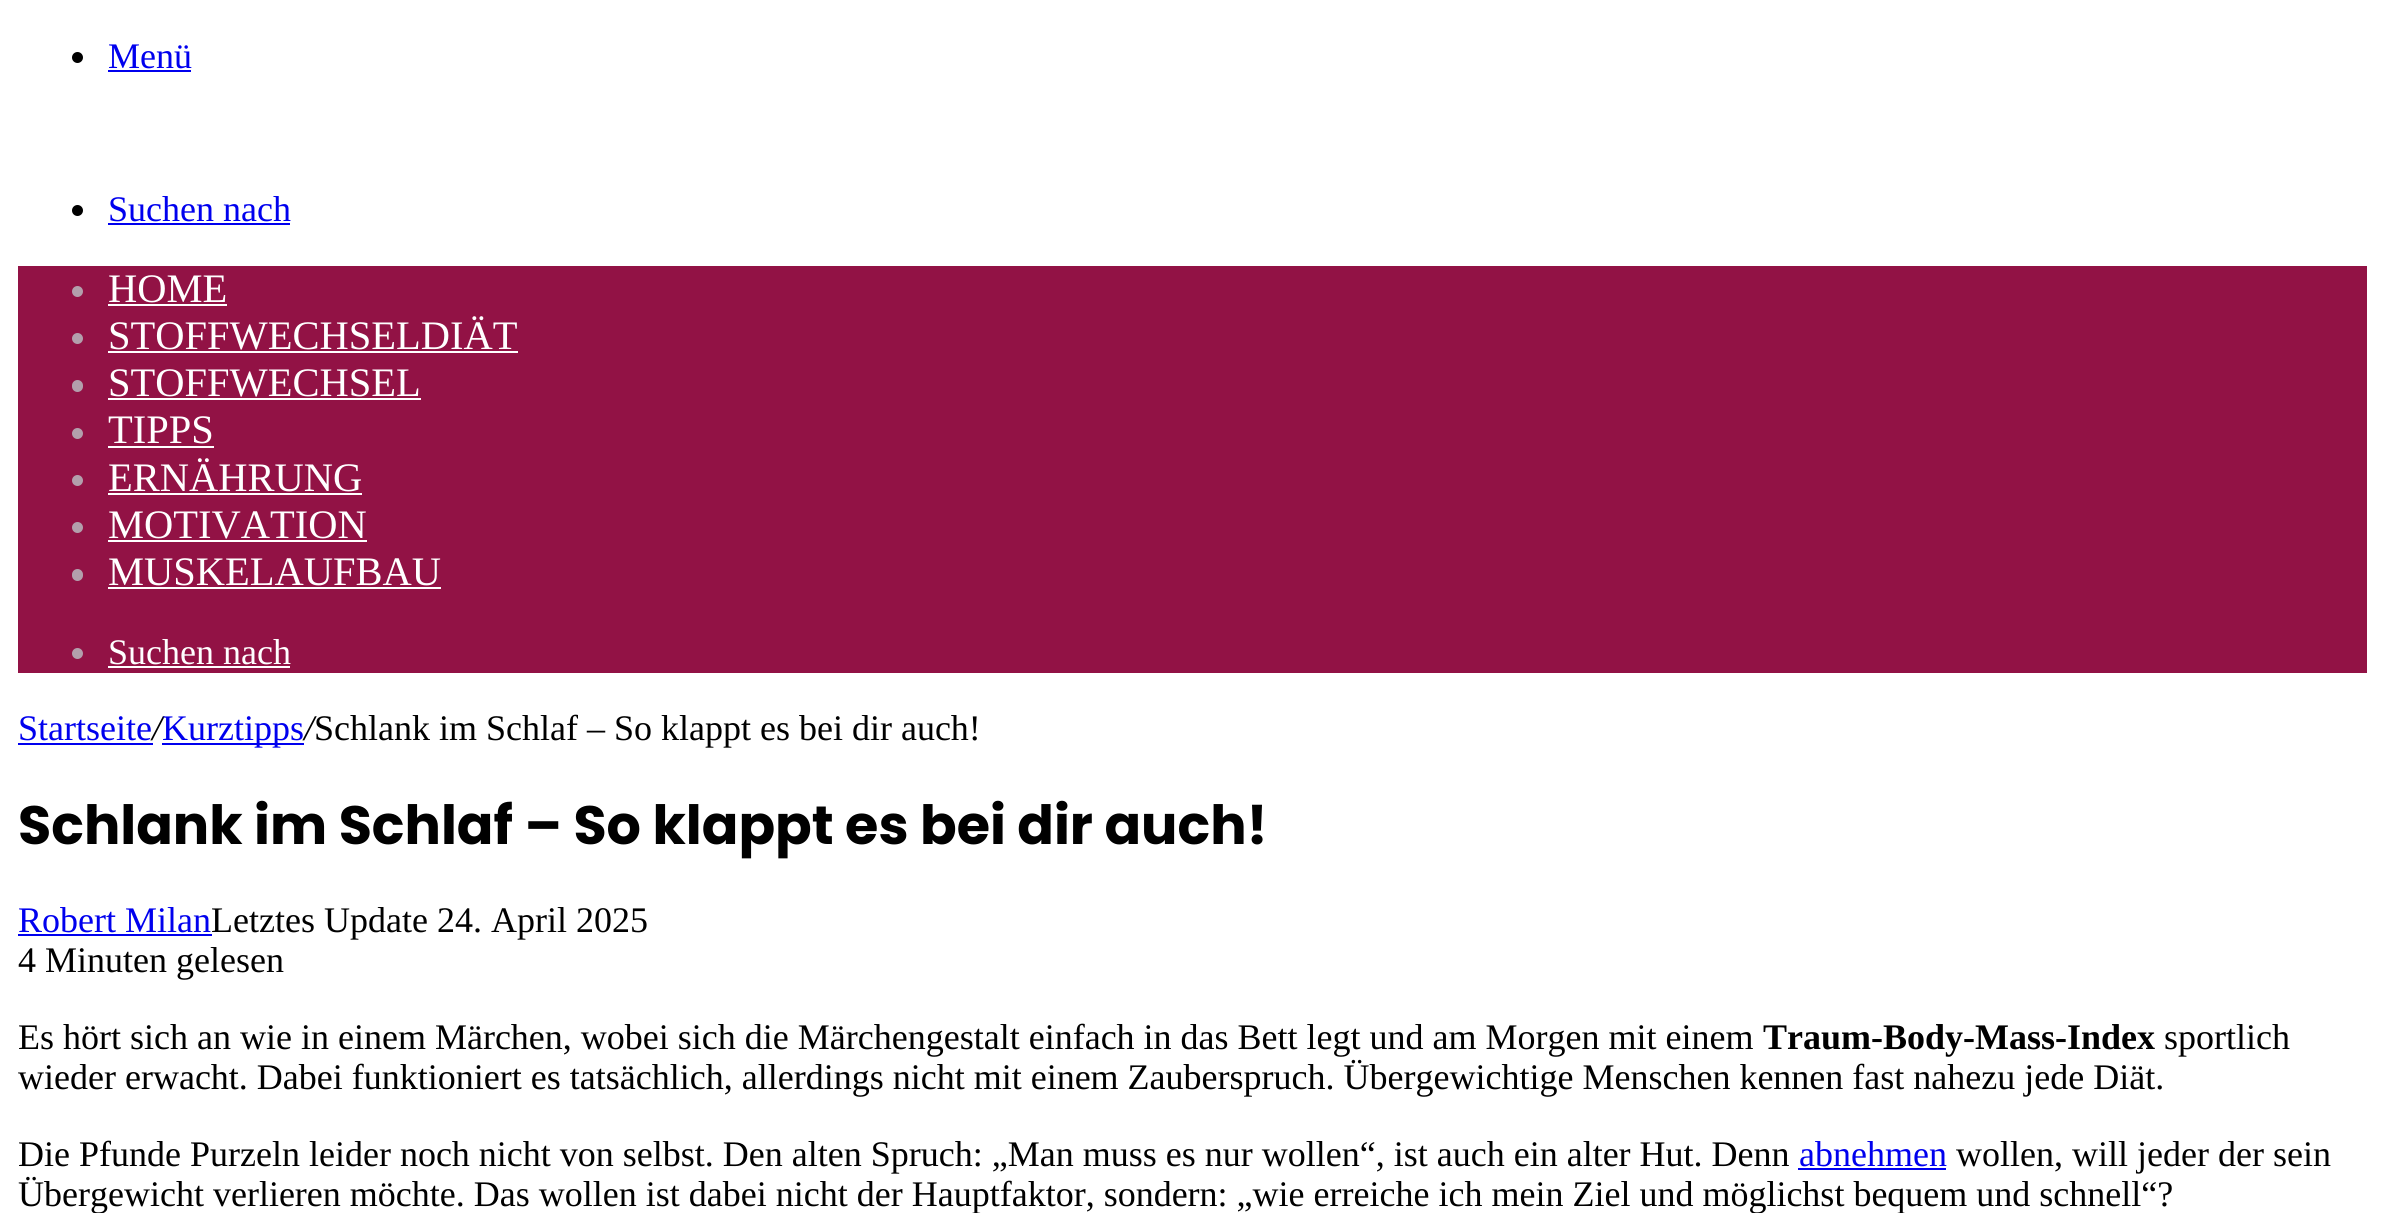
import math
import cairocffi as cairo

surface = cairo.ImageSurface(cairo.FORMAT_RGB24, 2384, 1213)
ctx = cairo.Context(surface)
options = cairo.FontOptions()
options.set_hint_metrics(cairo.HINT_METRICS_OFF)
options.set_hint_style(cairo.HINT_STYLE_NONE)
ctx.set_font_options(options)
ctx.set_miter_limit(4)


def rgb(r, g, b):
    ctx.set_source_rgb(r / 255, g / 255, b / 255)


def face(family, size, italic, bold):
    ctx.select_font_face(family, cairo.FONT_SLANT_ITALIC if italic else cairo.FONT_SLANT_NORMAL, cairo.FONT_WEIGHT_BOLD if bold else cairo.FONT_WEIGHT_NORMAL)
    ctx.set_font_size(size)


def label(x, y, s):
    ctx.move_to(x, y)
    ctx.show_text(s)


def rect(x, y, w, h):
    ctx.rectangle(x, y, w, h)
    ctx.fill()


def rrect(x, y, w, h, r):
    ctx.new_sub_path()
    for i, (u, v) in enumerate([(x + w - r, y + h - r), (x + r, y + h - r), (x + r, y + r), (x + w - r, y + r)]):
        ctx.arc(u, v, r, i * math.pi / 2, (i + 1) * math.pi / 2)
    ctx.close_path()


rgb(255, 255, 255)
ctx.paint()
rgb(0, 0, 0)
ctx.arc(77.5, 57.5, 5.5, 0, 2 * math.pi)
ctx.fill()
face('Liberation Serif', 36, 0, 0)
rgb(0, 0, 238)
label(108, 68, 'Menü')
rect(108, 70, 83, 2)
rgb(0, 0, 0)
ctx.new_path()
ctx.arc(77.5, 210.5, 5.5, 0, 2 * math.pi)
ctx.fill()
rgb(0, 0, 238)
label(108, 221, 'Suchen nach')
rect(108, 223, 182, 2)
rgb(146, 18, 69)
rect(18, 266, 2349, 407)
rgb(179, 159, 172)
ctx.new_path()
ctx.arc(77.5, 291.5, 5.5, 0, 2 * math.pi)
ctx.fill()
face('Liberation Serif', 40.5, 0, 0)
rgb(255, 255, 255)
label(108, 302, 'HOME')
rect(108, 304, 119, 2)
rgb(179, 159, 172)
ctx.new_path()
ctx.arc(77.5, 338.5, 5.5, 0, 2 * math.pi)
ctx.fill()
rgb(255, 255, 255)
label(108, 349, 'STOFFWECHSELDIÄT')
rect(108, 351, 410, 2)
rgb(179, 159, 172)
rrect(72, 380, 11, 12, 5.5)
ctx.fill()
rgb(255, 255, 255)
label(108, 396, 'STOFFWECHSEL')
rect(108, 398, 313, 2)
rgb(179, 159, 172)
ctx.new_path()
ctx.arc(77.5, 433.5, 5.5, 0, 2 * math.pi)
ctx.fill()
rgb(255, 255, 255)
label(108, 443, 'TIPPS')
rect(108, 446, 106, 2)
rgb(179, 159, 172)
ctx.new_path()
ctx.arc(77.5, 480.5, 5.5, 0, 2 * math.pi)
ctx.fill()
rgb(255, 255, 255)
label(108, 491, 'ERNÄHRUNG')
rect(108, 493, 254, 2)
rgb(179, 159, 172)
ctx.new_path()
ctx.arc(77.5, 527.5, 5.5, 0, 2 * math.pi)
ctx.fill()
rgb(255, 255, 255)
label(108, 538, 'MOTIVATION')
rect(108, 540, 259, 2)
rgb(179, 159, 172)
rrect(72, 569, 11, 12, 5.5)
ctx.fill()
rgb(255, 255, 255)
label(108, 585, 'MUSKELAUFBAU')
rect(108, 587, 333, 2)
rgb(179, 159, 172)
ctx.new_path()
ctx.arc(77.5, 653.5, 5.5, 0, 2 * math.pi)
ctx.fill()
face('Liberation Serif', 36, 0, 0)
rgb(255, 255, 255)
label(108, 664, 'Suchen nach')
rect(108, 666, 182, 2)
rgb(0, 0, 238)
label(18, 740, 'Startseite')
rect(18, 743, 135, 2)
face('Liberation Serif', 36, 1, 0)
rgb(0, 0, 0)
label(152, 740, '/')
rgb(0, 0, 238)
rect(162, 743, 142, 2)
face('Liberation Serif', 36, 0, 0)
label(162, 740, 'Kurztipps')
face('Liberation Serif', 36, 1, 0)
rgb(0, 0, 0)
label(304, 740, '/')
face('Liberation Serif', 36, 0, 0)
label(314, 740, 'Schlank im Schlaf – So klappt es bei dir auch!')
face('Poppins', 54, 0, 1)
label(18, 844, 'Schlank im Schlaf – So klappt es bei dir auch!')
face('Liberation Serif', 36, 0, 0)
rgb(0, 0, 238)
label(18, 932, 'Robert Milan')
rect(18, 934, 194, 2)
rgb(0, 0, 0)
label(211, 932, 'Letztes Update 24. April 2025')
label(18, 972, '4 Minuten gelesen')
label(18, 1049, 'Es hört sich an wie in einem Märchen, wobei sich die Märchengestalt einfach in das Bett legt und am Morgen mit einem')
face('Liberation Serif', 36, 0, 1)
label(1763, 1049, 'Traum-Body-Mass-Index')
face('Liberation Serif', 36, 0, 0)
label(2164, 1049, 'sportlich')
label(18, 1089, 'wieder erwacht. Dabei funktioniert es tatsächlich, allerdings nicht mit einem Zauberspruch. Übergewichtige Menschen kennen fast nahezu jede Diät.')
label(18, 1166, 'Die Pfunde Purzeln leider noch nicht von selbst. Den alten Spruch: „Man muss es nur wollen“, ist auch ein alter Hut. Denn')
rgb(0, 0, 238)
label(1799, 1166, 'abnehmen')
rect(1798, 1168, 148, 2)
rgb(0, 0, 0)
label(1956, 1166, 'wollen, will jeder der sein')
label(18, 1206, 'Übergewicht verlieren möchte. Das wollen ist dabei nicht der Hauptfaktor, sondern: „wie erreiche ich mein Ziel und möglichst bequem und schnell“?')
surface.write_to_png('render.png')
